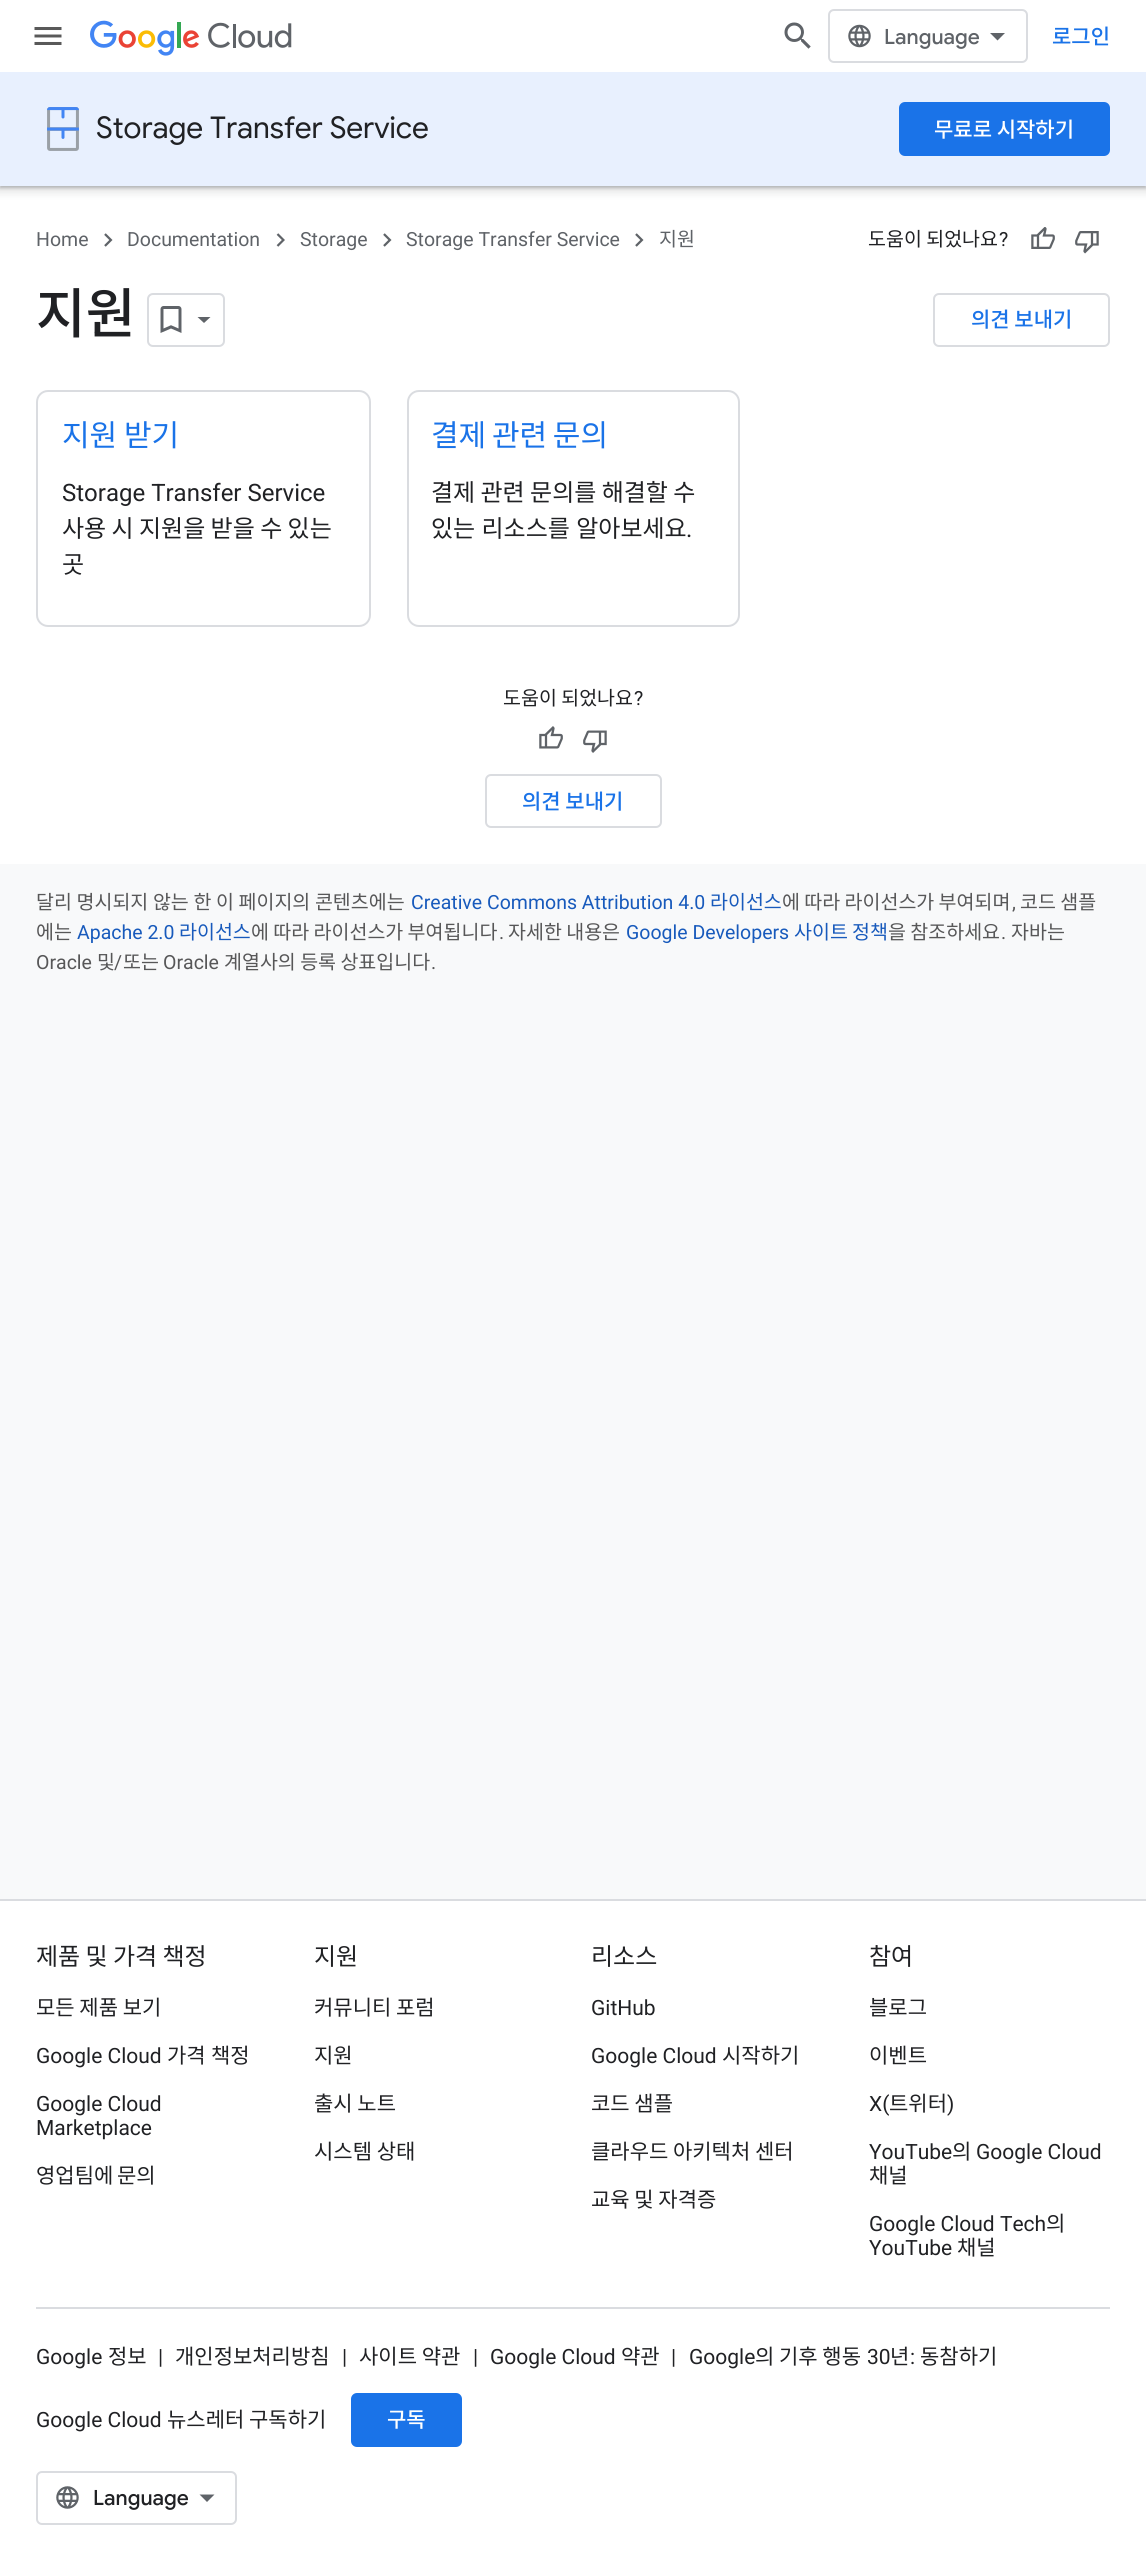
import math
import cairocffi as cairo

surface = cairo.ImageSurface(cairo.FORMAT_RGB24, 1146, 2560)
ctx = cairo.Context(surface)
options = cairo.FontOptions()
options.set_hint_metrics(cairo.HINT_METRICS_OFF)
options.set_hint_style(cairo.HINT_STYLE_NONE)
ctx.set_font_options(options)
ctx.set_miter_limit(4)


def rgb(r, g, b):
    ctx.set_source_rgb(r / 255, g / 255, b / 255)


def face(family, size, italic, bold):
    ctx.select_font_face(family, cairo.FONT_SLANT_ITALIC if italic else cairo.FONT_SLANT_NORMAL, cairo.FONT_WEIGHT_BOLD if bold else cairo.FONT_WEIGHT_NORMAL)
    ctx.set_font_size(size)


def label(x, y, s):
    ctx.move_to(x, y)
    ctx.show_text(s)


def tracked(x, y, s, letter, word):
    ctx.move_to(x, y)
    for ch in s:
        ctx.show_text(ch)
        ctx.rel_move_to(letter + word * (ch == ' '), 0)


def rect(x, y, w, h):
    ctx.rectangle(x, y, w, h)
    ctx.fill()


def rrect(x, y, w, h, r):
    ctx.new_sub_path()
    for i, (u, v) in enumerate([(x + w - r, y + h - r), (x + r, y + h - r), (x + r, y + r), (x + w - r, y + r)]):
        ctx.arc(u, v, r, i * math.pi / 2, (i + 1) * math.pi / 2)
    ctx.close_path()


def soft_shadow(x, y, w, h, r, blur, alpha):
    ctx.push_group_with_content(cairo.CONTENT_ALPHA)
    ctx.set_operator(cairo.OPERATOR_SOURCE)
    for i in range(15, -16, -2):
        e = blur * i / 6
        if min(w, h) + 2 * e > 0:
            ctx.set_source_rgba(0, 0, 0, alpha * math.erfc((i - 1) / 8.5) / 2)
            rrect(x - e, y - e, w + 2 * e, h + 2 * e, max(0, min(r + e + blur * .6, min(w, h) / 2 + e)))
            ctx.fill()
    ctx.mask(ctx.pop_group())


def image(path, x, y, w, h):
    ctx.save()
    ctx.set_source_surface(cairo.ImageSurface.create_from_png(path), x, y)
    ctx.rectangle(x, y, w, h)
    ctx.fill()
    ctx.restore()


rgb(248, 249, 250)
ctx.paint()
rgb(255, 255, 255)
rect(0, 186, 1146, 678)
rgb(60, 64, 67)
soft_shadow(-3, 72, 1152, 120, 0, 4.5, 0.15)
soft_shadow(0, 74, 1146, 114, 0, 1.5, 0.3)
rgb(255, 255, 255)
rect(0, 0, 1146, 72)
image('image0.png', 34, 27, 28, 18)
image('image1.png', 90, 20, 202, 36)
image('image2.png', 784, 22, 27, 27)
rrect(829, 10, 198, 52, 5)
rgb(218, 220, 224)
ctx.stroke()
image('image3.png', 848, 24, 23, 24)
face('Google Sans Medium', 21, 0, 0)
rgb(95, 99, 104)
label(884, 44, 'Language')
ctx.new_path()
ctx.move_to(997.5, 40.5)
ctx.line_to(990, 33)
ctx.line_to(1005, 33)
ctx.close_path()
ctx.fill()
face('Noto Sans KR Medium', 21, 0, 0)
rgb(26, 115, 232)
label(1052, 44, '로그인')
rgb(232, 240, 254)
rect(0, 72, 1146, 114)
image('image4.png', 47, 107, 32, 44)
face('Google Sans', 30, 0, 0)
rgb(32, 33, 36)
label(96, 138, 'Storage Transfer Service')
rgb(26, 115, 232)
rrect(899, 102, 211, 54, 6)
ctx.fill()
face('Noto Sans KR Medium', 21, 0, 0)
rgb(255, 255, 255)
label(934, 137, '무료로 시작하기')
face('Roboto', 19.5, 0, 0)
rgb(95, 99, 104)
label(36, 246, 'Home')
image('image5.png', 104, 233, 9, 14)
label(127, 246, 'Documentation')
image('image6.png', 276, 233, 9, 14)
label(300, 246, 'Storage')
image('image5.png', 383, 233, 9, 14)
label(406, 246, 'Storage Transfer Service')
image('image5.png', 635, 233, 9, 14)
face('Noto Sans KR', 19.5, 0, 0)
label(659, 246, '지원')
rgb(32, 33, 36)
label(868, 246, '도움이 되었나요')
face('Roboto', 19.5, 0, 0)
label(999, 246, '?')
image('image7.png', 1031, 227, 24, 22)
image('image8.png', 1075, 231, 24, 23)
face('Noto Sans KR Medium', 54, 0, 0)
label(36, 333, '지원')
rrect(148, 294, 76, 52, 5)
rgb(218, 220, 224)
ctx.stroke()
image('image9.png', 160, 306, 22, 27)
rgb(95, 99, 104)
ctx.new_path()
ctx.move_to(197.5, 317)
ctx.line_to(210.5, 317)
ctx.line_to(204, 323)
ctx.close_path()
ctx.fill()
rrect(934, 294, 175, 52, 5)
rgb(218, 220, 224)
ctx.stroke()
face('Noto Sans KR Medium', 21, 0, 0)
rgb(26, 115, 232)
label(971, 327, '의견 보내기')
rrect(37, 391, 333, 235, 11)
rgb(218, 220, 224)
ctx.stroke()
face('Noto Sans KR', 30, 0, 0)
rgb(26, 115, 232)
label(62, 446, '지원 받기')
face('Roboto', 24, 0, 0)
rgb(32, 33, 36)
label(62, 501, 'Storage Transfer Service')
face('Noto Sans KR', 24, 0, 0)
label(62, 537, '사용 시 지원을 받을 수 있는')
label(62, 573, '곳')
rrect(408, 391, 331, 235, 11)
rgb(218, 220, 224)
ctx.stroke()
face('Noto Sans KR', 30, 0, 0)
rgb(26, 115, 232)
tracked(431, 446, '결제 관련 문의', 0, -1)
face('Noto Sans KR', 24, 0, 0)
rgb(32, 33, 36)
label(431, 501, '결제 관련 문의를 해결할 수')
tracked(431, 537, '있는 리소스를 알아보세요', 0, 1)
face('Roboto', 24, 0, 0)
label(686, 537, '.')
face('Noto Sans KR', 19.5, 0, 0)
label(503, 705, '도움이 되었나요')
face('Roboto', 19.5, 0, 0)
label(634, 705, '?')
image('image10.png', 539, 726, 24, 23)
image('image11.png', 583, 730, 24, 23)
rrect(486, 775, 175, 52, 5)
rgb(218, 220, 224)
ctx.stroke()
face('Noto Sans KR Medium', 21, 0, 0)
rgb(26, 115, 232)
label(522, 809, '의견 보내기')
face('Noto Sans KR', 19.5, 0, 0)
rgb(87, 87, 88)
tracked(36, 909, '달리 명시되지 않는 한 이 페이지의 콘텐츠에는', 0, 0.25)
face('Roboto', 19.5, 0, 0)
rgb(24, 90, 188)
label(411, 909, 'Creative Commons Attribution 4.0')
face('Noto Sans KR', 19.5, 0, 0)
label(710, 909, '라이선스')
rgb(87, 87, 88)
label(782, 909, '에 따라 라이선스가 부여되며')
face('Roboto', 19.5, 0, 0)
label(1012, 909, ',')
face('Noto Sans KR', 19.5, 0, 0)
label(1020, 909, '코드 샘플')
label(36, 939, '에는')
face('Roboto', 19.5, 0, 0)
rgb(24, 90, 188)
label(77, 939, 'Apache 2.0')
face('Noto Sans KR', 19.5, 0, 0)
label(179, 939, '라이선스')
rgb(87, 87, 88)
label(251, 939, '에 따라 라이선스가 부여됩니다')
face('Roboto', 19.5, 0, 0)
label(499, 939, '.')
face('Noto Sans KR', 19.5, 0, 0)
label(508, 939, '자세한 내용은')
face('Roboto', 19.5, 0, 0)
rgb(24, 90, 188)
label(626, 939, 'Google Developers')
face('Noto Sans KR', 19.5, 0, 0)
label(794, 939, '사이트')
label(852, 939, '정책')
rgb(87, 87, 88)
label(888, 939, '을 참조하세요')
face('Roboto', 19.5, 0, 0)
label(1001, 939, '.')
face('Noto Sans KR', 19.5, 0, 0)
label(1011, 939, '자바는')
face('Roboto', 19.5, 0, 0)
label(36, 969, 'Oracle')
face('Noto Sans KR', 19.5, 0, 0)
label(97, 969, '및')
face('Roboto', 19.5, 0, 0)
label(114, 969, '/')
face('Noto Sans KR', 19.5, 0, 0)
label(123, 969, '또는')
face('Roboto', 19.5, 0, 0)
label(163, 969, 'Oracle')
face('Noto Sans KR', 19.5, 0, 0)
label(224, 969, '계열사의 등록 상표입니다')
face('Roboto', 19.5, 0, 0)
label(431, 969, '.')
rgb(218, 220, 224)
rect(0, 1899, 1146, 2)
rgb(255, 255, 255)
rect(0, 1901, 1146, 659)
rgb(218, 220, 224)
rect(36, 2307, 1074, 2)
face('Noto Sans KR', 24, 0, 0)
rgb(32, 33, 36)
label(36, 1965, '제품 및 가격 책정')
face('Noto Sans KR', 21, 0, 0)
label(36, 2015, '모든 제품 보기')
face('Roboto', 21, 0, 0)
label(36, 2063, 'Google Cloud')
face('Noto Sans KR', 21, 0, 0)
label(167, 2063, '가격')
label(211, 2063, '책정')
face('Roboto', 21, 0, 0)
label(36, 2111, 'Google Cloud')
label(36, 2135, 'Marketplace')
face('Noto Sans KR', 21, 0, 0)
tracked(36, 2183, '영업팀에 문의', 0, -1)
face('Noto Sans KR', 24, 0, 0)
label(314, 1965, '지원')
face('Noto Sans KR', 21, 0, 0)
label(314, 2015, '커뮤니티 포럼')
label(314, 2063, '지원')
label(314, 2111, '출시 노트')
label(314, 2159, '시스템 상태')
face('Noto Sans KR', 24, 0, 0)
label(591, 1965, '리소스')
face('Roboto', 21, 0, 0)
label(591, 2015, 'GitHub')
label(591, 2063, 'Google Cloud')
face('Noto Sans KR', 21, 0, 0)
label(722, 2063, '시작하기')
label(591, 2111, '코드 샘플')
label(591, 2159, '클라우드 아키텍처 센터')
label(591, 2207, '교육 및 자격증')
face('Noto Sans KR', 24, 0, 0)
label(869, 1965, '참여')
face('Noto Sans KR', 21, 0, 0)
label(869, 2015, '블로그')
label(869, 2063, '이벤트')
face('Roboto', 21, 0, 0)
label(869, 2111, 'X(')
face('Noto Sans KR', 21, 0, 0)
label(889, 2111, '트위터')
face('Roboto', 21, 0, 0)
label(947, 2111, ')')
label(869, 2159, 'YouTube')
face('Noto Sans KR', 21, 0, 0)
label(952, 2159, '의')
face('Roboto', 21, 0, 0)
label(976, 2159, 'Google Cloud')
face('Noto Sans KR', 21, 0, 0)
label(869, 2183, '채널')
face('Roboto', 21, 0, 0)
label(869, 2231, 'Google Cloud Tech')
face('Noto Sans KR', 21, 0, 0)
label(1046, 2231, '의')
face('Roboto', 21, 0, 0)
label(869, 2255, 'YouTube')
face('Noto Sans KR', 21, 0, 0)
label(957, 2255, '채널')
face('Roboto', 21, 0, 0)
label(36, 2364, 'Google')
face('Noto Sans KR', 21, 0, 0)
label(108, 2364, '정보')
face('Roboto', 21, 0, 0)
label(158, 2364, '|')
face('Noto Sans KR', 21, 0, 0)
label(175, 2364, '개인정보처리방침')
face('Roboto', 21, 0, 0)
label(342, 2364, '|')
face('Noto Sans KR', 21, 0, 0)
label(359, 2364, '사이트 약관')
face('Roboto', 21, 0, 0)
label(473, 2364, '|')
label(490, 2364, 'Google Cloud')
face('Noto Sans KR', 21, 0, 0)
label(621, 2364, '약관')
face('Roboto', 21, 0, 0)
label(671, 2364, '|')
label(689, 2364, 'Google')
face('Noto Sans KR', 21, 0, 0)
label(755, 2364, '의 기후 행동')
face('Roboto', 21, 0, 0)
label(867, 2364, '30')
face('Noto Sans KR', 21, 0, 0)
label(890, 2364, '년')
face('Roboto', 21, 0, 0)
label(910, 2364, ':')
face('Noto Sans KR', 21, 0, 0)
label(920, 2364, '동참하기')
face('Roboto', 21, 0, 0)
label(36, 2427, 'Google Cloud')
face('Noto Sans KR', 21, 0, 0)
label(167, 2427, '뉴스레터')
label(249, 2427, '구독하기')
rgb(26, 115, 232)
rrect(351, 2393, 111, 54, 6)
ctx.fill()
face('Noto Sans KR Medium', 21, 0, 0)
rgb(255, 255, 255)
label(387, 2427, '구독')
rrect(37, 2472, 199, 52, 5)
rgb(218, 220, 224)
ctx.stroke()
image('image12.png', 56, 2486, 23, 23)
face('Google Sans Medium', 21, 0, 0)
rgb(32, 33, 36)
label(93, 2505, 'Language')
rgb(95, 99, 104)
ctx.new_path()
ctx.move_to(207, 2502)
ctx.line_to(199.5, 2494.5)
ctx.line_to(214.5, 2494.5)
ctx.close_path()
ctx.fill()
surface.write_to_png('render.png')
